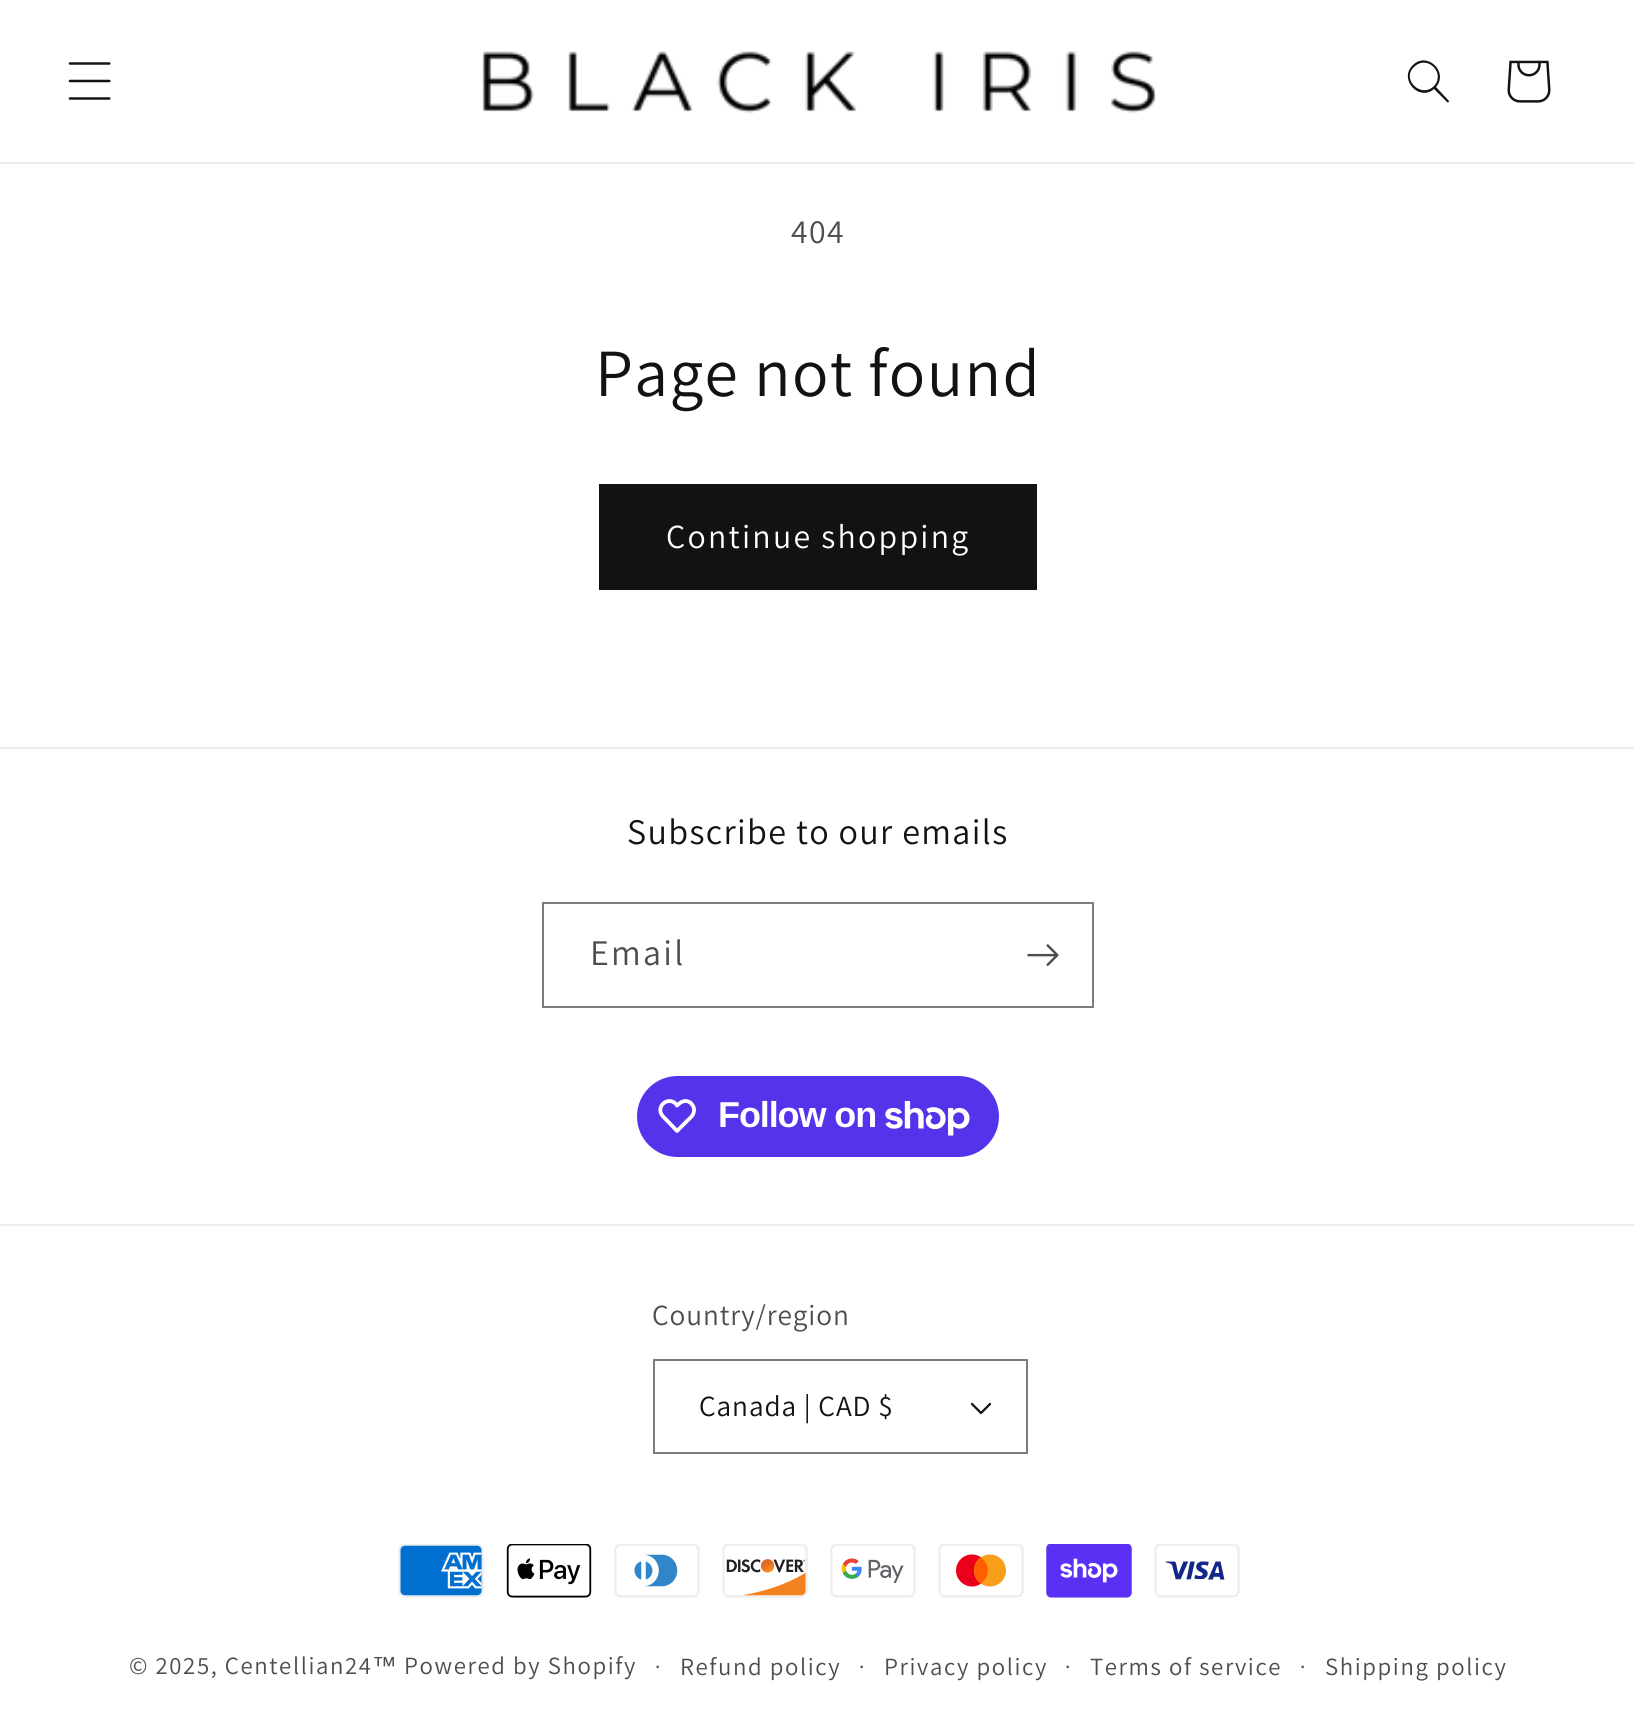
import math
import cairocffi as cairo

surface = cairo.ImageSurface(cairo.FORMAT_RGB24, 1634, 1724)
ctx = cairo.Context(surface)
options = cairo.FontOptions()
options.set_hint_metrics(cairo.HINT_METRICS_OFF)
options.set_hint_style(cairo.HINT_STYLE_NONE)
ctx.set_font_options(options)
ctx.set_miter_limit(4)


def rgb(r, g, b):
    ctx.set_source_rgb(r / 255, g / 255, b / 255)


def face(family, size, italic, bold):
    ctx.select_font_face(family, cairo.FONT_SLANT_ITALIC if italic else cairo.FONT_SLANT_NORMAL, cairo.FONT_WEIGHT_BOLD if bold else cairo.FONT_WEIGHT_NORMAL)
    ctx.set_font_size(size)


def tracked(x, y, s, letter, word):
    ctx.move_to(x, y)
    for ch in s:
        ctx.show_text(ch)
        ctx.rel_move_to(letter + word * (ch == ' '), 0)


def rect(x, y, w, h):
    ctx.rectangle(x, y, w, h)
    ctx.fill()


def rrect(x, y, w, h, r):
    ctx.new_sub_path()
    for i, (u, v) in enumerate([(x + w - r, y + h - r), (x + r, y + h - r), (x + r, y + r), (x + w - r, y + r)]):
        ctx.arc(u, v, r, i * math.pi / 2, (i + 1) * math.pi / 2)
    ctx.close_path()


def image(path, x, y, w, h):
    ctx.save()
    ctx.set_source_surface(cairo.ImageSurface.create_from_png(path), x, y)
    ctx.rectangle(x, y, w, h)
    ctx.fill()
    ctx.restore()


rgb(255, 255, 255)
ctx.paint()
rgb(236, 236, 236)
rect(0, 162, 1634, 2)
image('image0.png', 68, 62, 43, 38)
image('image1.png', 482, 51, 675, 63)
rgb(18, 18, 18)
ctx.set_fill_rule(cairo.FILL_RULE_EVEN_ODD)
ctx.new_path()
ctx.move_to(1434, 86)
ctx.curve_to(1421, 99, 1401, 79, 1414, 67)
ctx.curve_to(1427, 54, 1446, 73, 1434, 86)
ctx.move_to(1434, 89)
ctx.curve_to(1419, 102, 1398, 79, 1413, 65)
ctx.curve_to(1427, 51, 1449, 72, 1436, 87)
ctx.line_to(1449, 101)
ctx.curve_to(1449, 102, 1448, 103, 1447, 102)
ctx.close_path()
ctx.fill()
image('image2.png', 1507, 60, 44, 43)
face('Assistant', 33.75, 0, 0)
rgb(77, 77, 77)
tracked(791, 243, '404', 1.35, 0)
face('Assistant', 67.5, 0, 0)
rgb(18, 18, 18)
tracked(595, 396, 'Page not found', 1.35, 0)
rect(599, 484, 438, 106)
face('Assistant', 33.75, 0, 0)
rgb(255, 255, 255)
tracked(666, 548, 'Continue shopping', 2.25, 0)
rgb(236, 236, 236)
rect(0, 747, 1634, 2)
face('Assistant', 36, 0, 0)
rgb(18, 18, 18)
tracked(627, 844, 'Subscribe to our emails', 1.35, 0)
ctx.rectangle(543, 903, 550, 104)
rgb(125, 125, 125)
ctx.stroke()
rgb(77, 77, 77)
tracked(590, 965, 'Email', 2.25, 0)
image('image3.png', 1027, 944, 32, 22)
rgb(84, 51, 235)
rrect(637, 1076, 362, 81, 40.5)
ctx.fill()
ctx.new_path()
ctx.move_to(675.5, 1103.5)
ctx.line_to(677, 1105.5)
ctx.curve_to(679, 1104, 680.5, 1102, 683, 1101.5)
ctx.curve_to(689.5, 1099, 696, 1106.5, 693.5, 1113)
ctx.curve_to(692.5, 1116.5, 689, 1119, 687, 1121)
ctx.line_to(677, 1131)
ctx.line_to(667.5, 1121)
ctx.curve_to(665.5, 1119, 662.5, 1116.5, 661, 1113.5)
ctx.curve_to(657.5, 1104.5, 668.5, 1097, 675.5, 1103.5)
ctx.close_path()
rgb(255, 255, 255)
ctx.set_line_width(3.8)
ctx.set_line_join(cairo.LINE_JOIN_ROUND)
ctx.stroke()
face('Liberation Sans', 36, 0, 1)
tracked(718, 1127, 'Follow on', -1.1, 0)
image('image4.png', 885, 1101, 85, 35)
rgb(236, 236, 236)
rect(0, 1224, 1634, 2)
face('Assistant', 29.25, 0, 0)
rgb(77, 77, 77)
tracked(652, 1325, 'Country/region', 0.9, 0)
image('image5.png', 970, 1402, 22, 13)
ctx.rectangle(654, 1360, 373, 93)
rgb(125, 125, 125)
ctx.set_line_width(2)
ctx.set_line_join(cairo.LINE_JOIN_MITER)
ctx.stroke()
rgb(18, 18, 18)
tracked(699, 1416, 'Canada | CAD $', 0.9, 0)
image('image6.png', 398, 1544, 86, 54)
image('image7.png', 506, 1544, 86, 54)
image('image8.png', 614, 1544, 86, 54)
image('image9.png', 722, 1544, 86, 54)
image('image10.png', 830, 1544, 86, 54)
image('image11.png', 938, 1544, 86, 54)
image('image12.png', 1046, 1544, 86, 54)
image('image13.png', 1154, 1544, 86, 54)
face('Assistant', 24.75, 0, 0)
rgb(77, 77, 77)
tracked(129, 1674, '© 2025, Centellian24', 1.6, 0)
face('Liberation Sans', 24.75, 0, 0)
tracked(372, 1674, '™', 1.6, 0)
face('Assistant', 24.75, 0, 0)
tracked(404, 1674, 'Powered by Shopify', 1.6, 0)
face('Assistant', 22, 0, 0)
tracked(655, 1674, '·', 1.6, 0)
face('Assistant', 24.75, 0, 0)
tracked(680, 1675, 'Refund policy', 1.6, 0)
face('Assistant', 22, 0, 0)
tracked(859, 1674, '·', 1.6, 0)
face('Assistant', 24.75, 0, 0)
tracked(884, 1675, 'Privacy policy', 1.6, 0)
face('Assistant', 22, 0, 0)
tracked(1065, 1674, '·', 1.6, 0)
face('Assistant', 24.75, 0, 0)
tracked(1090, 1675, 'Terms of service', 1.6, 0)
face('Assistant', 22, 0, 0)
tracked(1300, 1674, '·', 1.6, 0)
face('Assistant', 24.75, 0, 0)
tracked(1325, 1675, 'Shipping policy', 1.6, 0)
surface.write_to_png('render.png')
